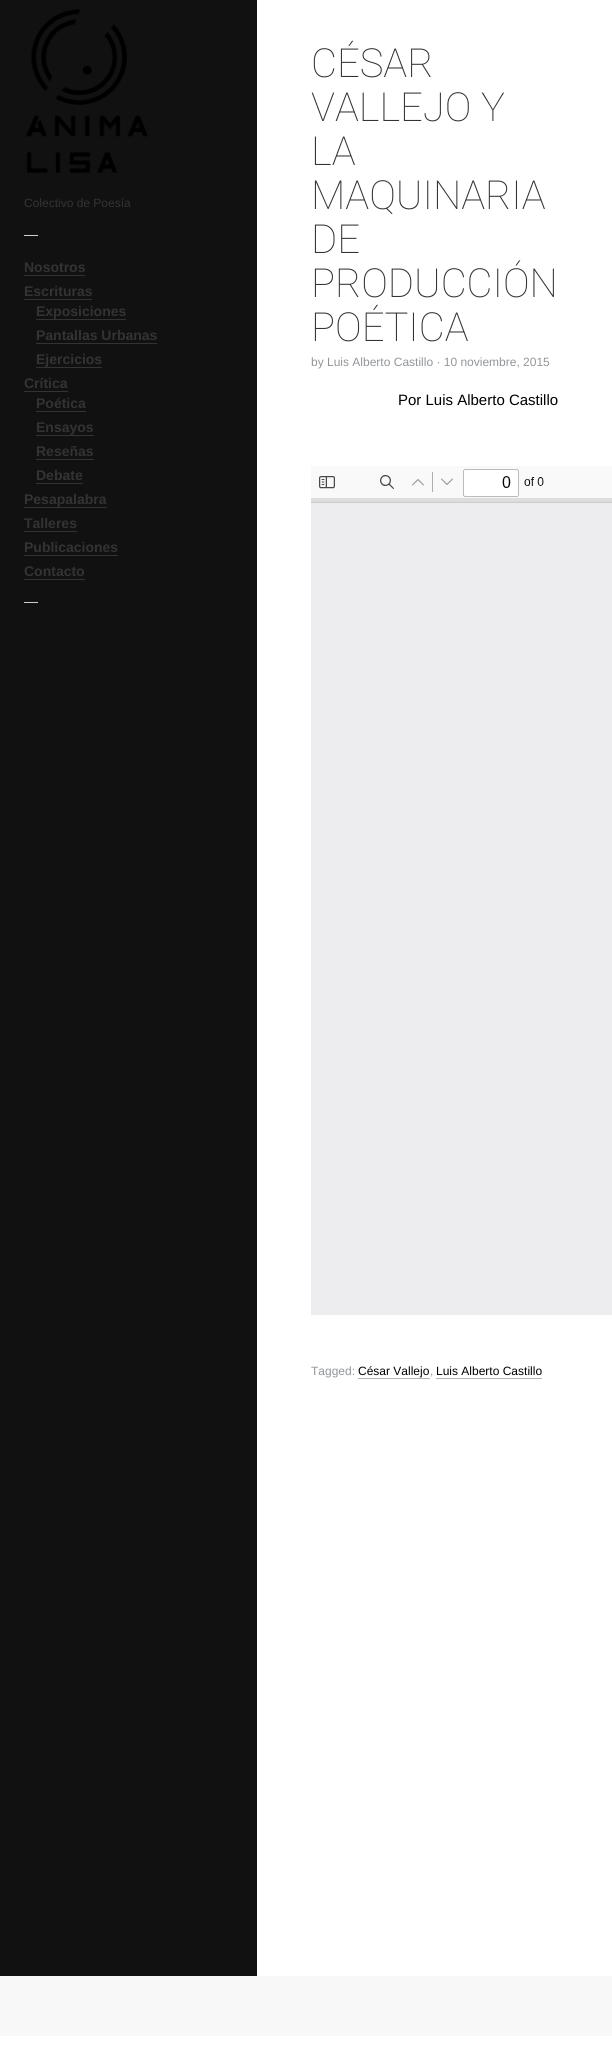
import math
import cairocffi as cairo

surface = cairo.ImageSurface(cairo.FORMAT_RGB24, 612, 2048)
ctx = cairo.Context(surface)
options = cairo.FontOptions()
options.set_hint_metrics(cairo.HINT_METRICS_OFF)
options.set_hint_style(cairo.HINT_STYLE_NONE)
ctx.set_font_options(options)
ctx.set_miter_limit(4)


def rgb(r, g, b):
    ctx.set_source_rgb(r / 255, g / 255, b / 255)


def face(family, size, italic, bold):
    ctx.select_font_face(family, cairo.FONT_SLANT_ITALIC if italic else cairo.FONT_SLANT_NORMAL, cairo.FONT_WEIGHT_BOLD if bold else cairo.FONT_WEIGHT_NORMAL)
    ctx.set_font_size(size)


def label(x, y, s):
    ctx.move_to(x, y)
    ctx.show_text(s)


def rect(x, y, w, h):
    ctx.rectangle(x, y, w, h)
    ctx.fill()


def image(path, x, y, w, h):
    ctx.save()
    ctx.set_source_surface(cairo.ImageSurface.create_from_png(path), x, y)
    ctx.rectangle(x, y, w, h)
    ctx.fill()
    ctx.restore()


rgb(255, 255, 255)
ctx.paint()
rgb(17, 17, 17)
rect(0, 0, 257, 1976)
image('image0.png', 26, 9, 122, 164)
face('Liberation Sans', 12, 0, 0)
rgb(51, 51, 51)
label(24, 207, 'Colectivo de Poesía')
face('Liberation Sans', 14, 0, 0)
rgb(221, 221, 221)
label(24, 239, '—')
face('Liberation Sans', 14, 0, 1)
rgb(51, 51, 51)
label(24, 272, 'Nosotros')
rect(24, 275, 61, 1)
label(24, 296, 'Escrituras')
rect(24, 299, 68, 1)
label(36, 316, 'Exposiciones')
rect(36, 319, 90, 1)
label(36, 340, 'Pantallas Urbanas')
rect(36, 343, 121, 1)
label(36, 364, 'Ejercicios')
rect(36, 367, 66, 1)
label(24, 388, 'Crítica')
rect(24, 391, 44, 1)
label(36, 408, 'Poética')
rect(36, 411, 50, 1)
label(36, 432, 'Ensayos')
rect(36, 435, 58, 1)
label(36, 456, 'Reseñas')
rect(36, 459, 58, 1)
label(36, 480, 'Debate')
rect(36, 483, 47, 1)
label(24, 504, 'Pesapalabra')
rect(24, 507, 83, 1)
label(24, 528, 'Talleres')
rect(24, 531, 53, 1)
label(24, 552, 'Publicaciones')
rect(24, 555, 94, 1)
label(24, 576, 'Contacto')
rect(24, 579, 61, 1)
face('Liberation Sans', 14, 0, 0)
rgb(221, 221, 221)
label(24, 606, '—')
face('Roboto Thin', 40, 0, 0)
rgb(51, 51, 51)
label(311, 77, 'CÉSAR')
label(311, 121, 'VALLEJO Y')
label(311, 165, 'LA')
label(311, 209, 'MAQUINARIA')
label(311, 253, 'DE')
label(311, 297, 'PRODUCCIÓN')
label(311, 341, 'POÉTICA')
face('Liberation Sans', 12, 0, 0)
rgb(146, 150, 153)
label(311, 366, 'by Luis Alberto Castillo · 10 noviembre, 2015')
face('Liberation Sans', 15, 0, 0)
rgb(0, 0, 0)
label(398, 405, 'Por Luis Alberto Castillo')
image('image1.png', 311, 466, 301, 849)
face('Liberation Sans', 12, 0, 0)
rgb(146, 150, 153)
label(311, 1375, 'Tagged:')
rgb(0, 0, 0)
label(358, 1375, 'César Vallejo')
rgb(179, 179, 179)
rect(358, 1378, 72, 1)
rgb(146, 150, 153)
label(430, 1375, ',')
rgb(0, 0, 0)
label(436, 1375, 'Luis Alberto Castillo')
rgb(179, 179, 179)
rect(436, 1378, 106, 1)
rgb(248, 248, 248)
rect(0, 1976, 612, 60)
surface.write_to_png('render.png')
